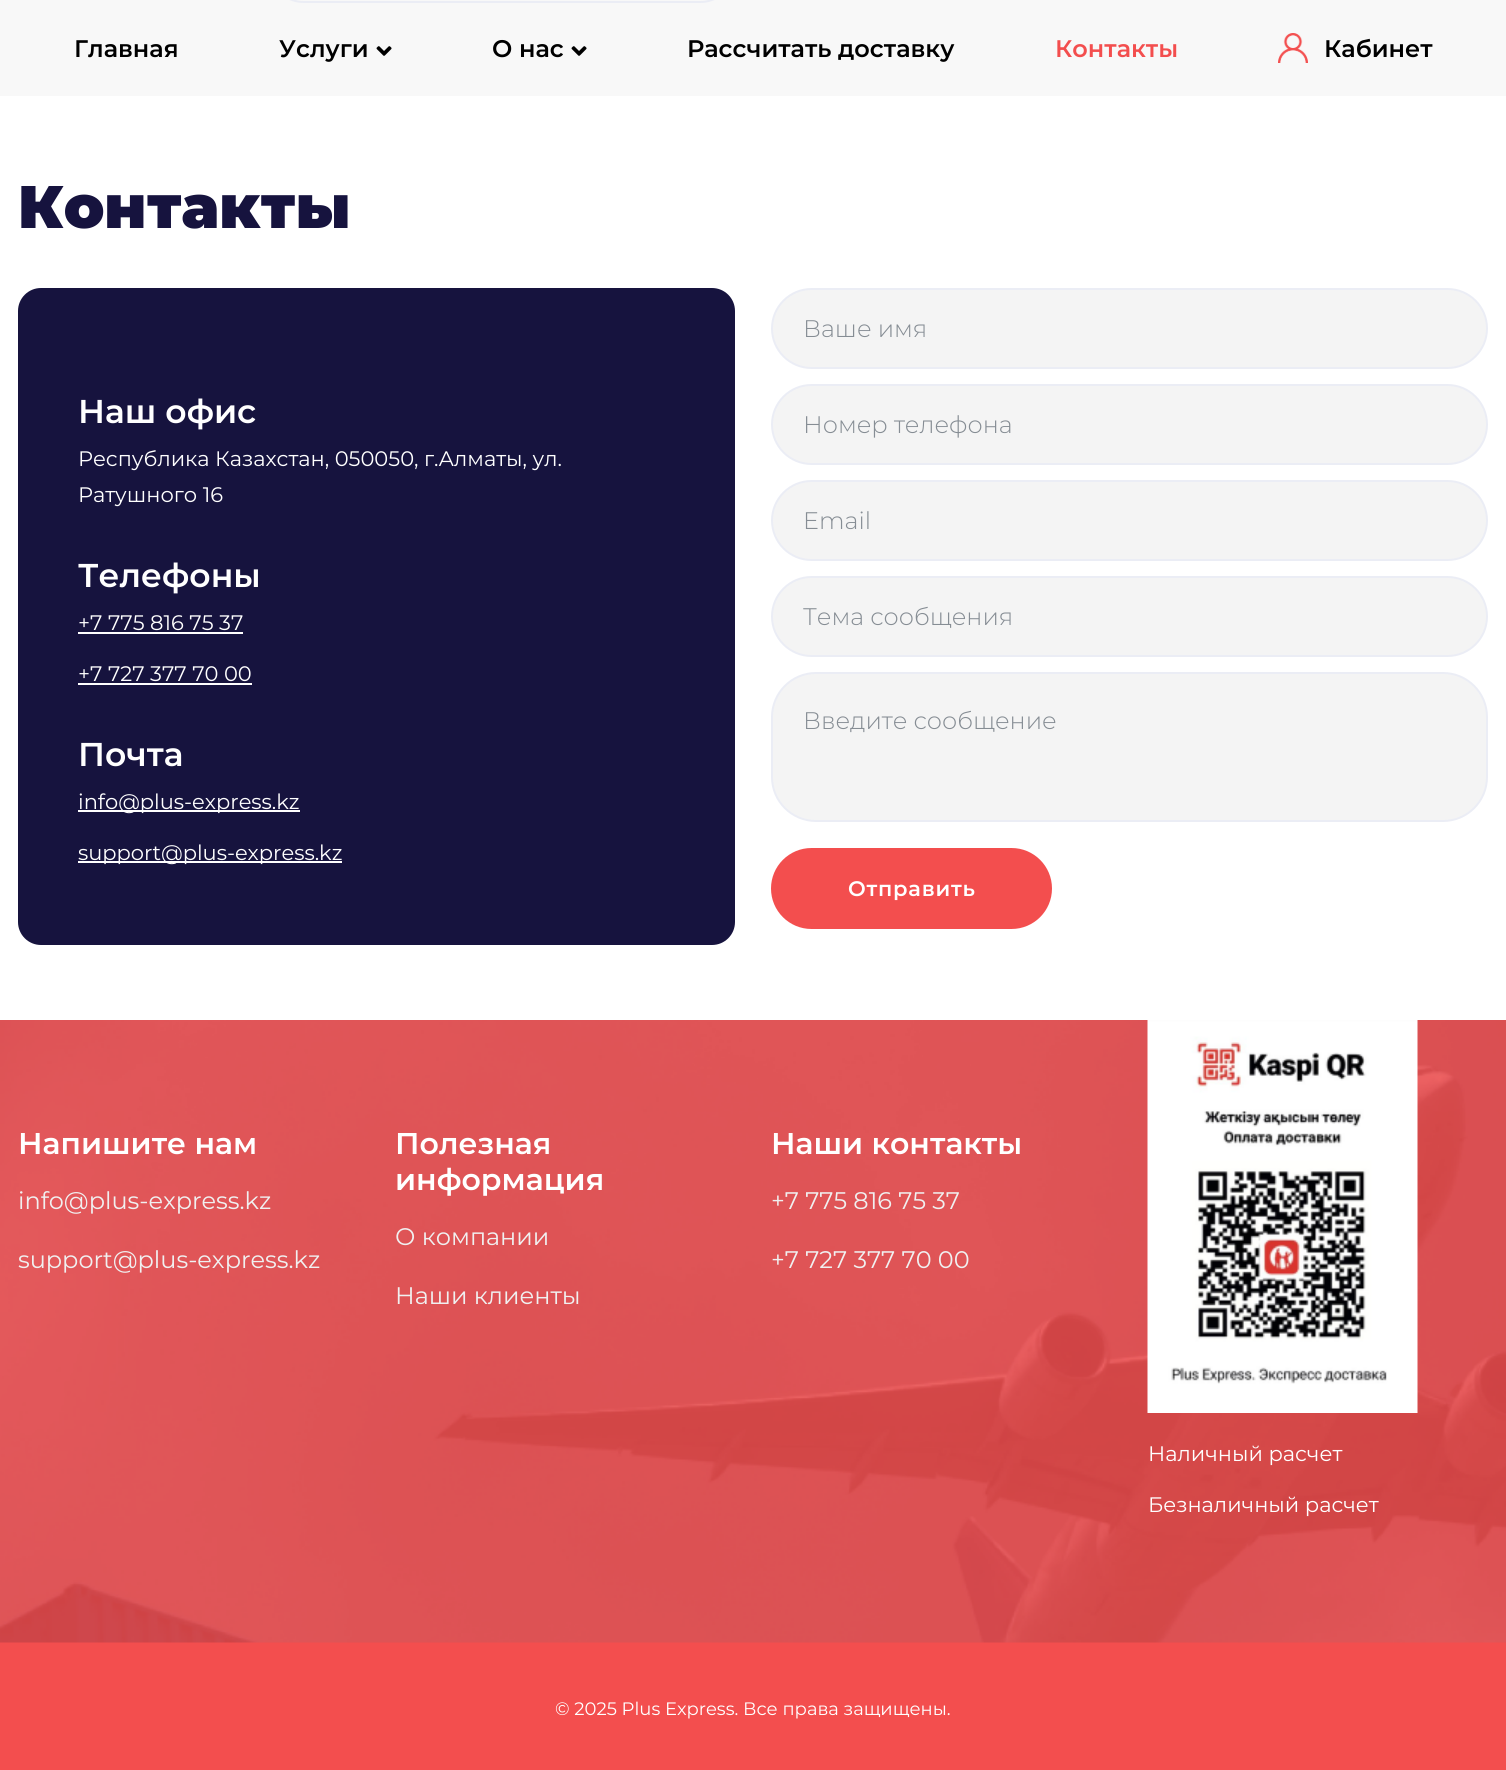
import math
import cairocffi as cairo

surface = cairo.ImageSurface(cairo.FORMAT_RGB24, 1506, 1770)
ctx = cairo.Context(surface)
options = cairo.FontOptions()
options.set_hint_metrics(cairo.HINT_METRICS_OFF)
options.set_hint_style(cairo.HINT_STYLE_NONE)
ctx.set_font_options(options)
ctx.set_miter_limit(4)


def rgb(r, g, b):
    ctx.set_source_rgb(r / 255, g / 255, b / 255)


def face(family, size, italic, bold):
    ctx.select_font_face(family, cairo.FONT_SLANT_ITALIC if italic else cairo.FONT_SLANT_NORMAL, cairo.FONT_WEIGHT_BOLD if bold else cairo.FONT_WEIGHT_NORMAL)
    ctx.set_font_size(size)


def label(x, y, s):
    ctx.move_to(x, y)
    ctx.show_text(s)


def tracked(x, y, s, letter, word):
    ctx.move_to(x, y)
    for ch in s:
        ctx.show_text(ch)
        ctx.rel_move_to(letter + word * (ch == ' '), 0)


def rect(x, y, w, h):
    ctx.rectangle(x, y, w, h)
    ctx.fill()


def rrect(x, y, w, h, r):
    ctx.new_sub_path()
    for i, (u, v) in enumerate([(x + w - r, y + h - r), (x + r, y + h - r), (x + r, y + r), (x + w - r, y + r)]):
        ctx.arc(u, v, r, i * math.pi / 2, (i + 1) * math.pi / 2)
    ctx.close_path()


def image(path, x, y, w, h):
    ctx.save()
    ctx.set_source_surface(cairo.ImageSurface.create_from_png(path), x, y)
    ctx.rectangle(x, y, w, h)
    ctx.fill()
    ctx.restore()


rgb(248, 248, 248)
ctx.paint()
rrect(270, -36, 464, 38, 33.5)
rgb(235, 237, 245)
ctx.stroke()
face('Montserrat SemiBold', 24, 0, 0)
rgb(0, 0, 0)
label(74, 57, 'Главная')
label(279, 57, 'Услуги')
image('image0.png', 376, 46, 16, 10)
label(492, 57, 'О нас')
image('image0.png', 571, 46, 16, 10)
label(687, 57, 'Рассчитать доставку')
rgb(243, 78, 78)
label(1055, 57, 'Контакты')
image('image1.png', 1278, 33, 30, 30)
rgb(0, 0, 0)
label(1324, 57, 'Кабинет')
rgb(255, 255, 255)
rect(0, 96, 1506, 924)
face('Montserrat Black', 60, 0, 0)
rgb(22, 19, 62)
label(18, 228, 'Контакты')
rrect(18, 288, 717, 657, 23)
ctx.fill()
face('Montserrat SemiBold', 33, 0, 0)
rgb(255, 255, 255)
label(78, 423, 'Наш офис')
face('Montserrat', 21, 0, 0)
label(78, 466, 'Республика Казахстан, 050050, г.Алматы, ул.')
label(78, 502, 'Ратушного 16')
face('Montserrat SemiBold', 33, 0, 0)
label(78, 587, 'Телефоны')
face('Montserrat', 21, 0, 0)
label(78, 630, '+7 775 816 75 37')
rect(78, 632, 165, 2)
label(78, 681, '+7 727 377 70 00')
rect(78, 683, 174, 2)
face('Montserrat SemiBold', 33, 0, 0)
label(78, 766, 'Почта')
rect(78, 810, 222, 2)
face('Montserrat', 21, 0, 0)
label(78, 809, 'info@plus-express.kz')
rect(78, 861, 264, 2)
label(78, 860, 'support@plus-express.kz')
rgb(244, 244, 244)
rrect(772, 289, 715, 79, 39.5)
ctx.fill_preserve()
rgb(235, 237, 245)
ctx.stroke()
face('Montserrat Light', 24, 0, 0)
rgb(134, 141, 148)
label(803, 337, 'Ваше имя')
rgb(244, 244, 244)
rrect(772, 385, 715, 79, 39.5)
ctx.fill_preserve()
rgb(235, 237, 245)
ctx.stroke()
rgb(134, 141, 148)
label(803, 433, 'Номер телефона')
rgb(244, 244, 244)
rrect(772, 481, 715, 79, 39.5)
ctx.fill_preserve()
rgb(235, 237, 245)
ctx.stroke()
rgb(134, 141, 148)
label(803, 529, 'Email')
rgb(244, 244, 244)
rrect(772, 577, 715, 79, 39.5)
ctx.fill_preserve()
rgb(235, 237, 245)
ctx.stroke()
rgb(134, 141, 148)
label(803, 625, 'Тема сообщения')
rgb(244, 244, 244)
rrect(772, 673, 715, 148, 44)
ctx.fill_preserve()
rgb(235, 237, 245)
ctx.stroke()
rgb(134, 141, 148)
label(803, 729, 'Введите сообщение')
rgb(243, 78, 78)
rrect(771, 848, 281, 81, 40.5)
ctx.fill()
face('Montserrat SemiBold', 21, 0, 0)
rgb(255, 255, 255)
tracked(848, 896, 'Отправить', 0.75, 0)
rgb(243, 78, 78)
rect(0, 1020, 1506, 750)
image('image2.png', 0, 1020, 1506, 623)
face('Montserrat SemiBold', 30, 0, 0)
rgb(255, 255, 255)
label(18, 1154, 'Напишите нам')
face('Montserrat', 24, 0, 0)
rgb(240, 240, 240)
label(18, 1209, 'info@plus-express.kz')
label(18, 1268, 'support@plus-express.kz')
face('Montserrat SemiBold', 30, 0, 0)
rgb(255, 255, 255)
label(395, 1154, 'Полезная')
label(395, 1190, 'информация')
face('Montserrat', 24, 0, 0)
rgb(240, 240, 240)
label(395, 1245, 'О компании')
label(395, 1304, 'Наши клиенты')
face('Montserrat SemiBold', 30, 0, 0)
rgb(255, 255, 255)
label(771, 1154, 'Наши контакты')
face('Montserrat', 24, 0, 0)
rgb(240, 240, 240)
label(771, 1209, '+7 775 816 75 37')
label(771, 1268, '+7 727 377 70 00')
image('image3.png', 1147, 1020, 271, 393)
face('Montserrat', 21, 0, 0)
rgb(255, 255, 255)
label(1148, 1461, 'Наличный расчет')
label(1148, 1512, 'Безналичный расчет')
face('Montserrat', 18, 0, 0)
label(555, 1715, '© 2025 Plus Express. Все права защищены.')
surface.write_to_png('render.png')
